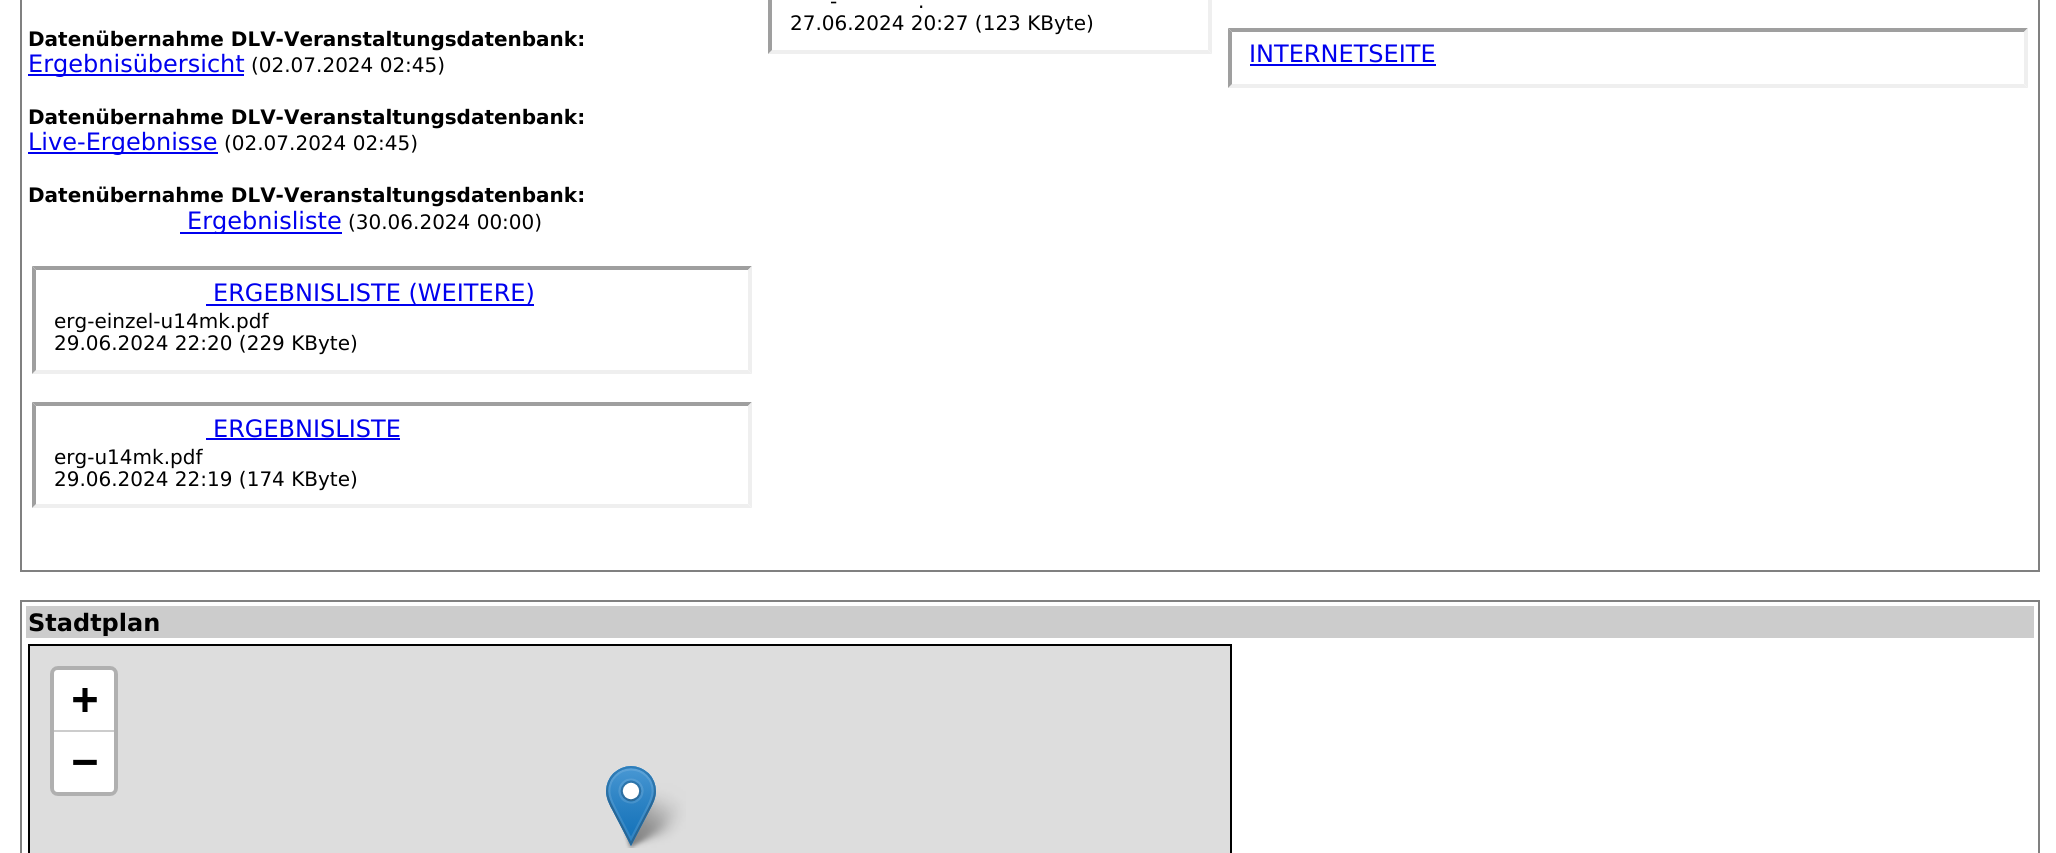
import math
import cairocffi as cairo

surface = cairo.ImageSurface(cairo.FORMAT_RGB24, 2056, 853)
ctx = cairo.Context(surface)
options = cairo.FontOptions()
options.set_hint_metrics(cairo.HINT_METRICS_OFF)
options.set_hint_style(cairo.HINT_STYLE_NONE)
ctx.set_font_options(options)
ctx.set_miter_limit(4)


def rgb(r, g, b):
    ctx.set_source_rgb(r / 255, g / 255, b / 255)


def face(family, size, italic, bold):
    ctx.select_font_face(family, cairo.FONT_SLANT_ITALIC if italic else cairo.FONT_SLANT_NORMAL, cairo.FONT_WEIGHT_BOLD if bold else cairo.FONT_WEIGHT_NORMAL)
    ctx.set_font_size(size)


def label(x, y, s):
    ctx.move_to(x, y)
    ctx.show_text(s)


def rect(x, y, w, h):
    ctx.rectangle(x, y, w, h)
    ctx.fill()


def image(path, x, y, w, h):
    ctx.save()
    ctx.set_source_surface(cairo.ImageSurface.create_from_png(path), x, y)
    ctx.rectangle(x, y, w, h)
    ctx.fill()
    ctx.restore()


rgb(255, 255, 255)
ctx.paint()
ctx.rectangle(21, -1, 2018, 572)
rgb(128, 128, 128)
ctx.stroke()
rgb(239, 239, 239)
ctx.new_path()
ctx.move_to(1212, -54)
ctx.line_to(1212, 54)
ctx.line_to(1208, 50)
ctx.line_to(1208, -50)
ctx.close_path()
ctx.fill()
ctx.new_path()
ctx.move_to(1212, 54)
ctx.line_to(768, 54)
ctx.line_to(772, 50)
ctx.line_to(1208, 50)
ctx.close_path()
ctx.fill()
rgb(159, 159, 159)
ctx.new_path()
ctx.move_to(768, 54)
ctx.line_to(768, -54)
ctx.line_to(772, -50)
ctx.line_to(772, 50)
ctx.close_path()
ctx.fill()
face('DejaVu Sans', 20, 0, 0)
rgb(0, 0, 0)
label(830, 8, '-')
label(918, 8, '.')
label(790, 30, '27.06.2024 20:27 (123 KByte)')
face('DejaVu Sans', 20, 0, 1)
label(28, 46, 'Datenübernahme DLV-Veranstaltungsdatenbank:')
rgb(0, 0, 238)
rect(28, 74, 216, 2)
face('DejaVu Sans', 24, 0, 0)
label(28, 72, 'Ergebnisübersicht')
face('DejaVu Sans', 20, 0, 0)
rgb(0, 0, 0)
label(251, 72, '(02.07.2024 02:45)')
face('DejaVu Sans', 20, 0, 1)
label(28, 124, 'Datenübernahme DLV-Veranstaltungsdatenbank:')
rgb(0, 0, 238)
rect(28, 152, 190, 2)
face('DejaVu Sans', 24, 0, 0)
label(28, 150, 'Live-Ergebnisse')
face('DejaVu Sans', 20, 0, 0)
rgb(0, 0, 0)
label(224, 150, '(02.07.2024 02:45)')
face('DejaVu Sans', 20, 0, 1)
label(28, 202, 'Datenübernahme DLV-Veranstaltungsdatenbank:')
rgb(0, 0, 238)
rect(180, 232, 162, 2)
face('DejaVu Sans', 24, 0, 0)
label(187, 229, 'Ergebnisliste')
face('DejaVu Sans', 20, 0, 0)
rgb(0, 0, 0)
label(348, 229, '(30.06.2024 00:00)')
rgb(159, 159, 159)
ctx.new_path()
ctx.move_to(32, 266)
ctx.line_to(752, 266)
ctx.line_to(748, 270)
ctx.line_to(36, 270)
ctx.close_path()
ctx.fill()
rgb(239, 239, 239)
ctx.new_path()
ctx.move_to(752, 266)
ctx.line_to(752, 374)
ctx.line_to(748, 370)
ctx.line_to(748, 270)
ctx.close_path()
ctx.fill()
ctx.new_path()
ctx.move_to(752, 374)
ctx.line_to(32, 374)
ctx.line_to(36, 370)
ctx.line_to(748, 370)
ctx.close_path()
ctx.fill()
rgb(159, 159, 159)
ctx.new_path()
ctx.move_to(32, 374)
ctx.line_to(32, 266)
ctx.line_to(36, 270)
ctx.line_to(36, 370)
ctx.close_path()
ctx.fill()
rgb(0, 0, 238)
rect(206, 304, 328, 2)
face('DejaVu Sans', 24, 0, 0)
label(213, 301, 'ERGEBNISLISTE (WEITERE)')
face('DejaVu Sans', 20, 0, 0)
rgb(0, 0, 0)
label(54, 328, 'erg-einzel-u14mk.pdf')
label(54, 350, '29.06.2024 22:20 (229 KByte)')
rgb(159, 159, 159)
ctx.new_path()
ctx.move_to(32, 402)
ctx.line_to(752, 402)
ctx.line_to(748, 406)
ctx.line_to(36, 406)
ctx.close_path()
ctx.fill()
rgb(239, 239, 239)
ctx.new_path()
ctx.move_to(752, 402)
ctx.line_to(752, 508)
ctx.line_to(748, 504)
ctx.line_to(748, 406)
ctx.close_path()
ctx.fill()
ctx.new_path()
ctx.move_to(752, 508)
ctx.line_to(32, 508)
ctx.line_to(36, 504)
ctx.line_to(748, 504)
ctx.close_path()
ctx.fill()
rgb(159, 159, 159)
ctx.new_path()
ctx.move_to(32, 508)
ctx.line_to(32, 402)
ctx.line_to(36, 406)
ctx.line_to(36, 504)
ctx.close_path()
ctx.fill()
face('DejaVu Sans', 24, 0, 0)
rgb(0, 0, 238)
label(213, 437, 'ERGEBNISLISTE')
rect(206, 438, 194, 2)
face('DejaVu Sans', 20, 0, 0)
rgb(0, 0, 0)
label(54, 464, 'erg-u14mk.pdf')
label(54, 486, '29.06.2024 22:19 (174 KByte)')
rgb(159, 159, 159)
ctx.new_path()
ctx.move_to(1228, 28)
ctx.line_to(2028, 28)
ctx.line_to(2024, 32)
ctx.line_to(1232, 32)
ctx.close_path()
ctx.fill()
rgb(239, 239, 239)
ctx.new_path()
ctx.move_to(2028, 28)
ctx.line_to(2028, 88)
ctx.line_to(2024, 84)
ctx.line_to(2024, 32)
ctx.close_path()
ctx.fill()
ctx.new_path()
ctx.move_to(2028, 88)
ctx.line_to(1228, 88)
ctx.line_to(1232, 84)
ctx.line_to(2024, 84)
ctx.close_path()
ctx.fill()
rgb(159, 159, 159)
ctx.new_path()
ctx.move_to(1228, 88)
ctx.line_to(1228, 28)
ctx.line_to(1232, 32)
ctx.line_to(1232, 84)
ctx.close_path()
ctx.fill()
face('DejaVu Sans', 24, 0, 0)
rgb(0, 0, 238)
label(1249, 62, 'INTERNETSEITE')
rect(1250, 64, 186, 2)
ctx.rectangle(21, 601, 2018, 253)
rgb(128, 128, 128)
ctx.stroke()
rgb(204, 204, 204)
rect(26, 606, 2008, 32)
face('DejaVu Sans', 24, 0, 1)
rgb(0, 0, 0)
label(28, 631, 'Stadtplan')
ctx.rectangle(29, 645, 1202, 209)
ctx.stroke()
image('image0.png', 30, 646, 1200, 207)
surface.write_to_png('render.png')
